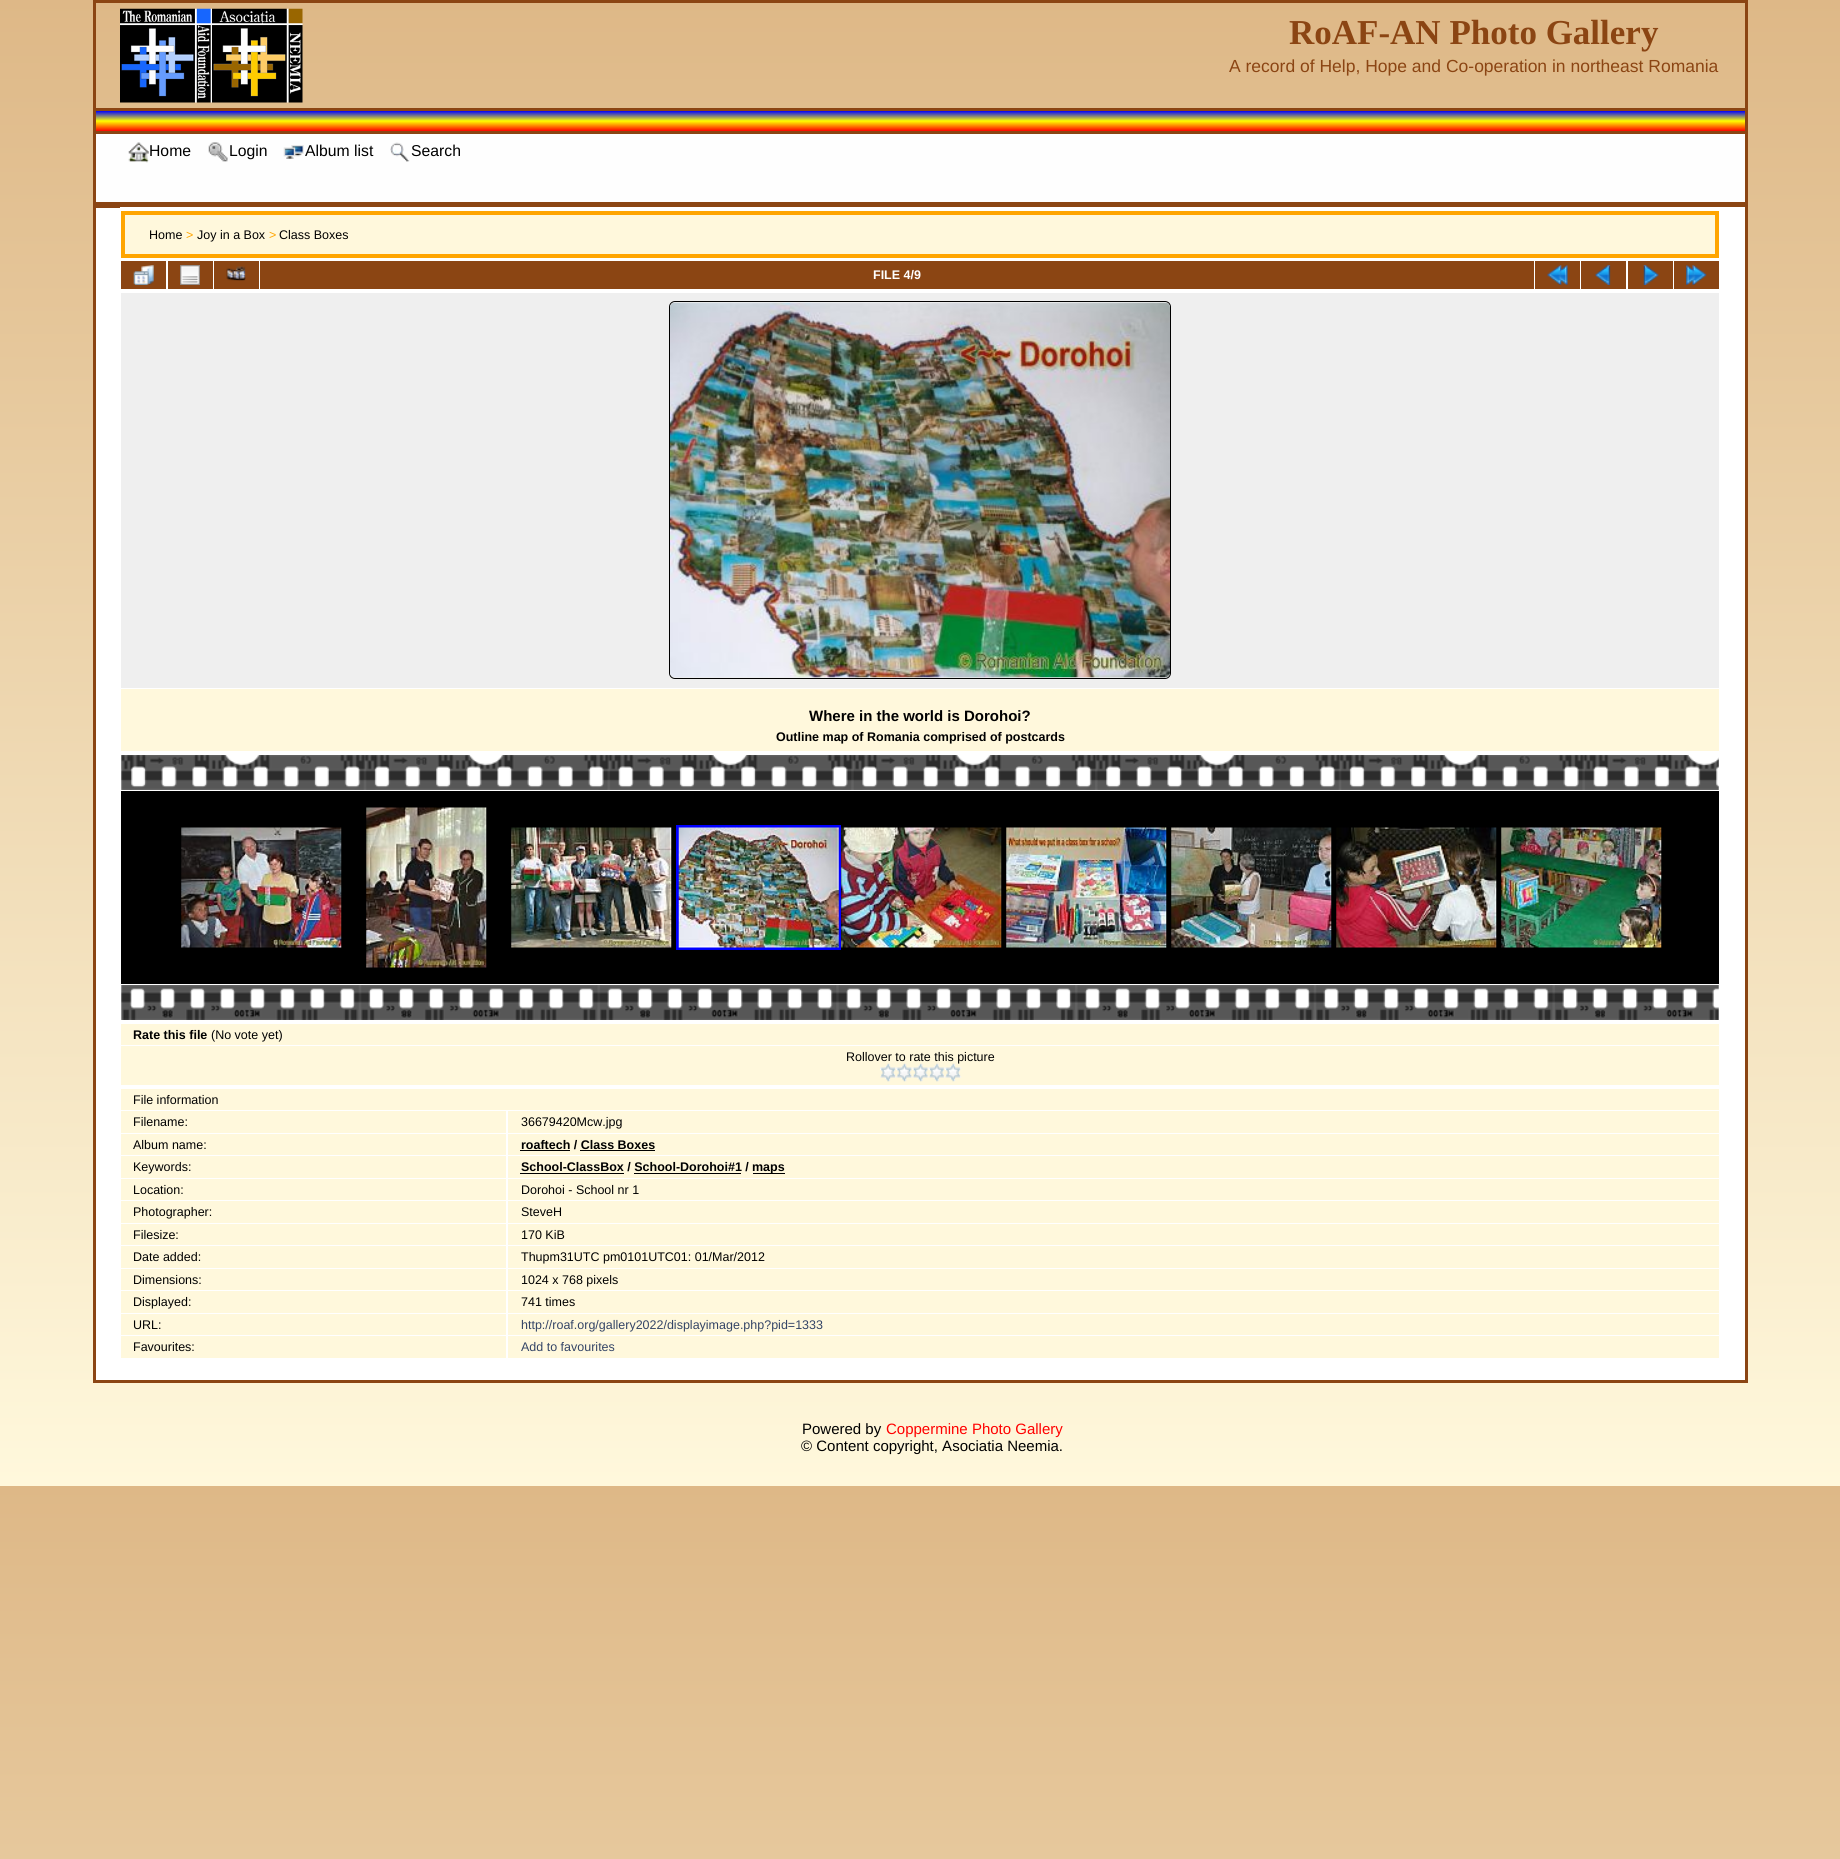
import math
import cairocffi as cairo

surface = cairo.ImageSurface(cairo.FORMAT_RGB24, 1840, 1859)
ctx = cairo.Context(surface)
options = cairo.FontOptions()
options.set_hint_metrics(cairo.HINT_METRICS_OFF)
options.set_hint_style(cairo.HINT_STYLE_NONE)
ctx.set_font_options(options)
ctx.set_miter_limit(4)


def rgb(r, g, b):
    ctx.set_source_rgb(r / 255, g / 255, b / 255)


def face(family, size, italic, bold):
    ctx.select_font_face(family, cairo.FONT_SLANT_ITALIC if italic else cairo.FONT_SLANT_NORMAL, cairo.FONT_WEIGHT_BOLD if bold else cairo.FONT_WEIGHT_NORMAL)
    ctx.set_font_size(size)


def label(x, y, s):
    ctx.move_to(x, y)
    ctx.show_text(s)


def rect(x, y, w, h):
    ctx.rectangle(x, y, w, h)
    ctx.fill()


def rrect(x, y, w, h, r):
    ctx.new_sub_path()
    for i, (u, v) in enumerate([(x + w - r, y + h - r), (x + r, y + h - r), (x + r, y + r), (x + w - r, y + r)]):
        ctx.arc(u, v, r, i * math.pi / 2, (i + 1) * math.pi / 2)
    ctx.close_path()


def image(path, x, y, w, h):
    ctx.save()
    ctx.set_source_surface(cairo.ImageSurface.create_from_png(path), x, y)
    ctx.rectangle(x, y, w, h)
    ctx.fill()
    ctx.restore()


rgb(255, 255, 255)
ctx.paint()
gradient = cairo.LinearGradient(920, 1486, 920, 0)
gradient.add_color_stop_rgba(0, 1, 0.973, 0.863, 1)
gradient.add_color_stop_rgba(1, 0.871, 0.722, 0.529, 1)
ctx.set_source(gradient)
rect(0, 0, 1840, 1486)
gradient = cairo.LinearGradient(920, 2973, 920, 1486)
gradient.add_color_stop_rgba(0, 1, 0.973, 0.863, 1)
gradient.add_color_stop_rgba(1, 0.871, 0.722, 0.529, 1)
ctx.set_source(gradient)
rect(0, 1486, 1840, 373)
ctx.rectangle(94.5, 1.5, 1652, 108)
rgb(139, 69, 19)
ctx.set_line_width(3)
ctx.stroke()
image('image0.png', 120, 8, 183, 95)
face('Liberation Serif', 35, 0, 1)
label(1289, 44, 'RoAF-AN Photo Gallery')
face('Liberation Sans', 17.5, 0, 0)
label(1229, 72, 'A record of Help, Hope and Co-operation in northeast Romania')
gradient = cairo.LinearGradient(920, 111, 920, 131)
gradient.add_color_stop_rgba(0, 0, 0, 1, 1)
gradient.add_color_stop_rgba(0.5, 1, 1, 0, 1)
gradient.add_color_stop_rgba(1, 1, 0, 0, 1)
ctx.set_source(gradient)
rect(96, 111, 1649, 20)
rgb(139, 69, 19)
rect(1745, 111, 3, 20)
rect(93, 111, 3, 20)
rgb(254, 254, 254)
ctx.rectangle(94.5, 132.5, 1652, 71)
ctx.fill_preserve()
rgb(139, 69, 19)
ctx.stroke()
image('image1.png', 128, 142, 21, 21)
face('Liberation Sans', 15.75, 0, 0)
rgb(0, 0, 0)
label(149, 156, 'Home')
image('image2.png', 208, 142, 20, 20)
label(229, 156, 'Login')
image('image3.png', 283, 145, 21, 14)
label(305, 156, 'Album list')
image('image4.png', 390, 142, 20, 20)
label(411, 156, 'Search')
rgb(255, 255, 255)
rect(96, 208, 24, 1172)
ctx.rectangle(94.5, 206.5, 1652, 1175)
rgb(139, 69, 19)
ctx.stroke()
rgb(255, 255, 255)
rect(120, 207, 1625, 1173)
rgb(255, 248, 220)
ctx.rectangle(123, 213, 1594, 43)
ctx.fill_preserve()
rgb(255, 165, 0)
ctx.set_line_width(4)
ctx.stroke()
face('Liberation Sans', 12.5, 0, 0)
rgb(0, 0, 0)
label(149, 239, 'Home')
rgb(255, 165, 0)
label(186, 239, '>')
rgb(0, 0, 0)
label(197, 239, 'Joy in a Box')
rgb(255, 165, 0)
label(269, 239, '>')
rgb(0, 0, 0)
label(279, 239, 'Class Boxes')
rgb(139, 69, 19)
rect(121, 261, 45, 28)
image('image5.png', 133, 265, 21, 20)
rect(168, 261, 45, 28)
image('image6.png', 180, 265, 20, 20)
rect(214, 261, 45, 28)
image('image7.png', 226, 266, 20, 15)
rect(260, 261, 1274, 28)
face('Liberation Sans', 12.5, 0, 1)
rgb(255, 255, 255)
label(873, 279, 'FILE 4/9')
rgb(139, 69, 19)
rect(1535, 261, 45, 28)
image('image8.png', 1547, 265, 21, 20)
rect(1581, 261, 45, 28)
image('image9.png', 1595, 265, 16, 20)
rect(1628, 261, 45, 28)
image('image10.png', 1643, 265, 16, 20)
rect(1674, 261, 45, 28)
image('image11.png', 1686, 265, 21, 20)
rgb(239, 239, 239)
rect(121, 293, 1598, 395)
rrect(669.5, 301.5, 501, 377, 5.5)
rgb(0, 0, 0)
ctx.set_line_width(1)
ctx.stroke()
image('image12.png', 670, 302, 500, 376)
rgb(255, 248, 220)
rect(121, 689, 1598, 62)
face('Liberation Sans', 15, 0, 1)
rgb(0, 0, 0)
label(809, 721, 'Where in the world is Dorohoi?')
face('Liberation Sans', 12.5, 0, 1)
label(776, 741, 'Outline map of Romania comprised of postcards')
image('image13.png', 121, 755, 1598, 35)
rect(121, 791, 1598, 193)
image('image14.png', 181, 827, 161, 121)
image('image15.png', 366, 807, 121, 161)
image('image16.png', 511, 827, 161, 121)
ctx.rectangle(677.5, 826.5, 162, 122)
rgb(0, 0, 255)
ctx.set_line_width(3)
ctx.stroke()
image('image17.png', 678, 827, 161, 121)
image('image18.png', 841, 827, 161, 121)
image('image19.png', 1006, 827, 161, 121)
image('image20.png', 1171, 827, 161, 121)
image('image21.png', 1336, 827, 161, 121)
image('image22.png', 1501, 827, 161, 121)
image('image23.png', 121, 985, 1598, 35)
rgb(255, 248, 220)
rect(121, 1024, 1598, 21)
rgb(0, 0, 0)
label(133, 1039, 'Rate this file')
face('Liberation Sans', 12.5, 0, 0)
label(211, 1039, '(No vote yet)')
rgb(255, 248, 220)
rect(121, 1046, 1598, 39)
rgb(0, 0, 0)
label(846, 1061, 'Rollover to rate this picture')
image('image24.png', 880, 1063, 17, 19)
image('image25.png', 896, 1063, 17, 19)
image('image26.png', 912, 1063, 17, 19)
image('image27.png', 928, 1063, 17, 19)
image('image28.png', 945, 1063, 17, 19)
rgb(255, 248, 220)
rect(121, 1089, 1598, 21)
rgb(0, 0, 0)
label(133, 1104, 'File information')
rgb(255, 248, 220)
rect(121, 1111, 385, 22)
rgb(0, 0, 0)
label(133, 1126, 'Filename:')
rgb(255, 248, 220)
rect(508, 1111, 1211, 22)
rgb(0, 0, 0)
label(521, 1126, '36679420Mcw.jpg')
rgb(255, 248, 220)
rect(121, 1134, 385, 21)
rgb(0, 0, 0)
label(133, 1149, 'Album name:')
rgb(255, 248, 220)
rect(508, 1134, 1211, 21)
face('Liberation Sans', 12.5, 0, 1)
rgb(0, 0, 0)
label(521, 1149, 'roaftech / Class Boxes')
rect(520, 1150, 50, 1)
rect(580, 1150, 75, 1)
rgb(255, 248, 220)
rect(121, 1156, 385, 22)
face('Liberation Sans', 12.5, 0, 0)
rgb(0, 0, 0)
label(133, 1171, 'Keywords:')
rgb(255, 248, 220)
rect(508, 1156, 1211, 22)
face('Liberation Sans', 12.5, 0, 1)
rgb(0, 0, 0)
label(521, 1171, 'School-ClassBox / School-Dorohoi#1 /')
rect(520, 1173, 104, 1)
rect(634, 1173, 107, 1)
rect(753, 1173, 32, 1)
label(752, 1171, 'maps')
rgb(255, 248, 220)
rect(121, 1179, 385, 21)
face('Liberation Sans', 12.5, 0, 0)
rgb(0, 0, 0)
label(133, 1194, 'Location:')
rgb(255, 248, 220)
rect(508, 1179, 1211, 21)
rgb(0, 0, 0)
label(521, 1194, 'Dorohoi - School nr 1')
rgb(255, 248, 220)
rect(121, 1201, 385, 22)
rgb(0, 0, 0)
label(133, 1216, 'Photographer:')
rgb(255, 248, 220)
rect(508, 1201, 1211, 22)
rgb(0, 0, 0)
label(521, 1216, 'SteveH')
rgb(255, 248, 220)
rect(121, 1224, 385, 21)
rgb(0, 0, 0)
label(133, 1239, 'Filesize:')
rgb(255, 248, 220)
rect(508, 1224, 1211, 21)
rgb(0, 0, 0)
label(521, 1239, '170 KiB')
rgb(255, 248, 220)
rect(121, 1246, 385, 22)
rgb(0, 0, 0)
label(133, 1261, 'Date added:')
rgb(255, 248, 220)
rect(508, 1246, 1211, 22)
rgb(0, 0, 0)
label(521, 1261, 'Thupm31UTC pm0101UTC01: 01/Mar/2012')
rgb(255, 248, 220)
rect(121, 1269, 385, 21)
rgb(0, 0, 0)
label(133, 1284, 'Dimensions:')
rgb(255, 248, 220)
rect(508, 1269, 1211, 21)
rgb(0, 0, 0)
label(521, 1284, '1024 x 768 pixels')
rgb(255, 248, 220)
rect(121, 1291, 385, 22)
rgb(0, 0, 0)
label(133, 1306, 'Displayed:')
rgb(255, 248, 220)
rect(508, 1291, 1211, 22)
rgb(0, 0, 0)
label(521, 1306, '741 times')
rgb(255, 248, 220)
rect(121, 1314, 385, 21)
rgb(0, 0, 0)
label(133, 1329, 'URL:')
rgb(255, 248, 220)
rect(508, 1314, 1211, 21)
rgb(51, 68, 102)
label(521, 1329, 'http://roaf.org/gallery2022/displayimage.php?pid=1333')
rgb(255, 248, 220)
rect(121, 1336, 385, 22)
rgb(0, 0, 0)
label(133, 1351, 'Favourites:')
rgb(255, 248, 220)
rect(508, 1336, 1211, 22)
rgb(51, 68, 102)
label(521, 1351, 'Add to favourites')
face('Liberation Sans', 15, 0, 0)
rgb(0, 0, 0)
label(802, 1434, 'Powered by')
rgb(255, 0, 0)
label(886, 1434, 'Coppermine Photo Gallery')
rgb(0, 0, 0)
label(801, 1451, '© Content copyright, Asociatia Neemia.')
surface.write_to_png('render.png')
